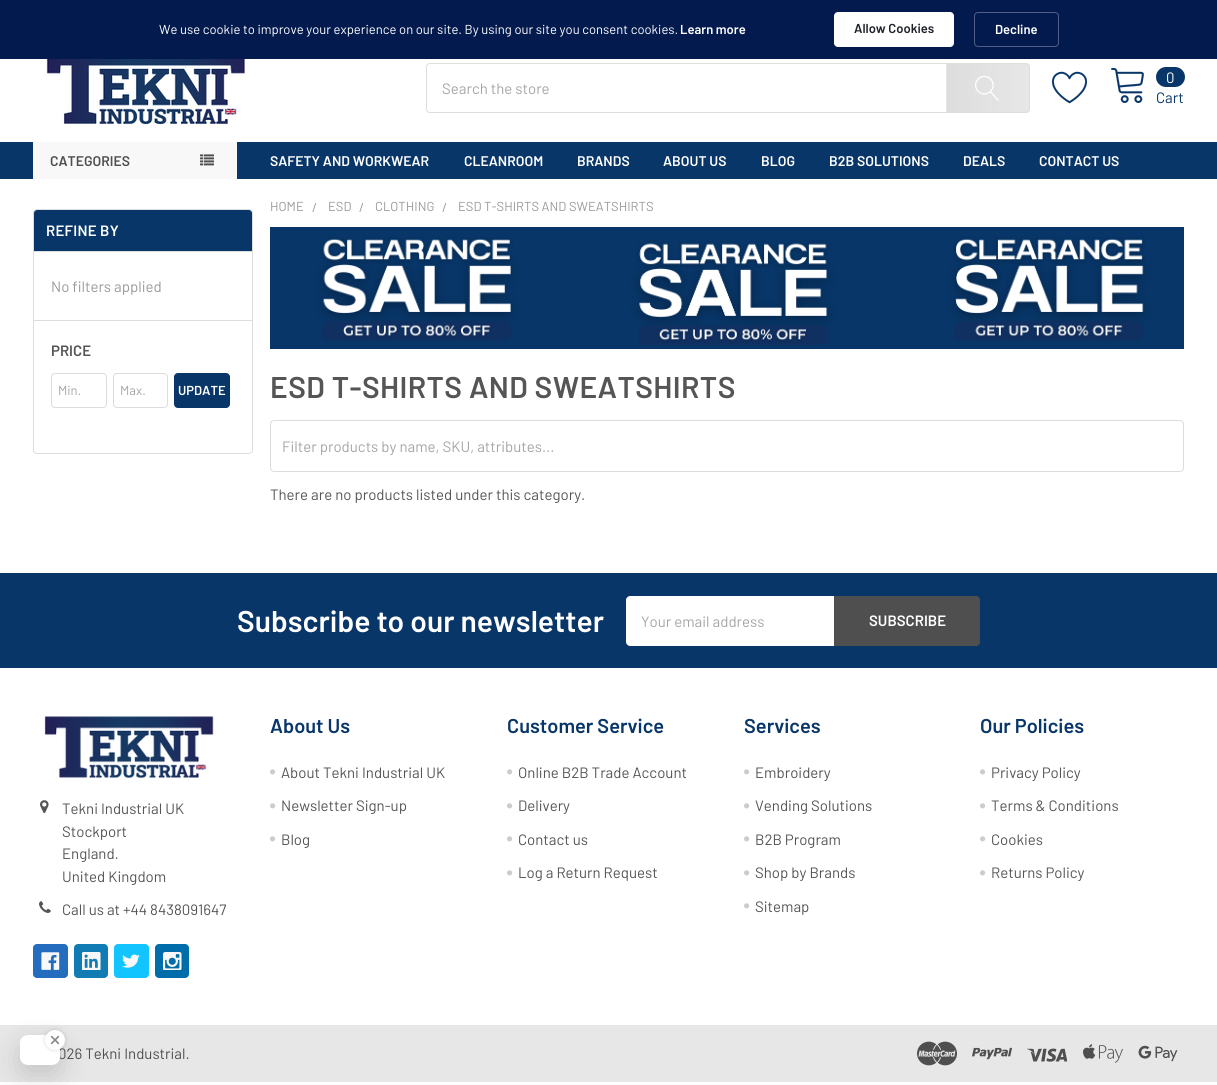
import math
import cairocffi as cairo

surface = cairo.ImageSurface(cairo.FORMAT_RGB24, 1217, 1085)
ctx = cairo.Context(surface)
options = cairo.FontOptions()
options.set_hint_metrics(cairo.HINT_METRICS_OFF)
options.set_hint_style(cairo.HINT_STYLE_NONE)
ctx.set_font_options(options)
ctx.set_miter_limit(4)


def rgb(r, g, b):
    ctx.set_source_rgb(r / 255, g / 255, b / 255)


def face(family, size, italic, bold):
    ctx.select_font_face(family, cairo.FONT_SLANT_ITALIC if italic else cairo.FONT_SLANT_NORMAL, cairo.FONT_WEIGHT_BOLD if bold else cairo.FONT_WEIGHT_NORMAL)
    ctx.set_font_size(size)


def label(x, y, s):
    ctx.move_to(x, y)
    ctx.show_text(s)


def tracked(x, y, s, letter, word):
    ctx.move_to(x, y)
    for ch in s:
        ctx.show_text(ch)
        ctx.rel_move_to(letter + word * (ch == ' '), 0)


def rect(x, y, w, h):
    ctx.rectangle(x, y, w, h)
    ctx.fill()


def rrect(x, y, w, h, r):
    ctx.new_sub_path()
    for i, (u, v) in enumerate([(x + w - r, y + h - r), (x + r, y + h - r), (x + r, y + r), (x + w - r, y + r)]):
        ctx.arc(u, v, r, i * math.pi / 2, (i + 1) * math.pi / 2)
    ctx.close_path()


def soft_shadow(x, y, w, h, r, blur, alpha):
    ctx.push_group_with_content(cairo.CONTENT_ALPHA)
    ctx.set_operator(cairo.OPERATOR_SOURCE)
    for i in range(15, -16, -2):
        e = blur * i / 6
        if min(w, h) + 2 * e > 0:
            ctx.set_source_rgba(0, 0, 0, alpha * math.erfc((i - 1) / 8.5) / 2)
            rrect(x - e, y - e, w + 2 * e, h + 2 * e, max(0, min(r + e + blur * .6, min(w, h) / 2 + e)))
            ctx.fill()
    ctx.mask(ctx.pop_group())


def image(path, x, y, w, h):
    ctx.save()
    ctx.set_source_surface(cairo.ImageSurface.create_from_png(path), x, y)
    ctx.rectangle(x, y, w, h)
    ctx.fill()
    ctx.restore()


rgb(255, 255, 255)
ctx.paint()
rgb(3, 26, 78)
rect(0, 0, 1217, 59)
face('Barlow', 13, 0, 0)
rgb(255, 255, 255)
label(159, 34, 'We use cookie to improve your experience on our site. By using our site you consent cookies.')
face('Barlow SemiBold', 13, 0, 0)
label(680, 34, 'Learn more')
rrect(834, 12, 120, 35, 4)
ctx.fill()
rgb(29, 33, 41)
label(854, 33, 'Allow Cookies')
rrect(974.5, 12.5, 84, 34, 3.5)
rgb(79, 95, 131)
ctx.set_line_width(1)
ctx.stroke()
rgb(255, 255, 255)
label(995, 34, 'Decline')
image('image0.png', 46, 59, 199, 66)
rrect(426.5, 63.5, 603, 49, 3.5)
rgb(221, 221, 221)
ctx.stroke()
face('Barlow', 15, 0, 0)
rgb(165, 165, 165)
label(442, 94, 'Search the store')
gradient = cairo.LinearGradient(865, 88, 947, 88)
gradient.add_color_stop_rgba(0, 0.867, 0.867, 0.867, 1)
gradient.add_color_stop_rgba(1, 0.867, 0.867, 0.867, 0.7)
ctx.set_source(gradient)
rect(946, 63, 1, 50)
ctx.save()
ctx.new_path()
ctx.move_to(946, 63)
ctx.line_to(1026, 63)
ctx.curve_to(1028, 63, 1030, 65, 1030, 67)
ctx.line_to(1030, 109)
ctx.curve_to(1030, 111, 1028, 113, 1026, 113)
ctx.line_to(946, 113)
ctx.close_path()
ctx.clip()
gradient = cairo.LinearGradient(947, 88, 1029, 88)
gradient.add_color_stop_rgba(0, 0.867, 0.867, 0.867, 1)
gradient.add_color_stop_rgba(1, 0.867, 0.867, 0.867, 0.7)
ctx.set_source(gradient)
rect(947, 63, 82, 50)
gradient = cairo.LinearGradient(1029, 88, 1111, 88)
gradient.add_color_stop_rgba(0, 0.867, 0.867, 0.867, 1)
gradient.add_color_stop_rgba(1, 0.867, 0.867, 0.867, 0.7)
ctx.set_source(gradient)
rect(1029, 63, 1, 50)
ctx.restore()
image('image1.png', 975, 75, 24, 26)
image('image2.png', 1052, 71, 35, 33)
image('image3.png', 1111, 68, 33, 35)
rgb(8, 54, 104)
rrect(1156, 67, 29, 20, 10)
ctx.fill()
rgb(255, 255, 255)
label(1166, 83, '0')
rgb(8, 54, 104)
label(1156, 103, 'Cart')
rect(0, 142, 1217, 37)
rgb(248, 248, 248)
rect(33, 142, 204, 37)
face('Barlow SemiBold', 14, 0, 0)
rgb(79, 79, 79)
label(50, 166, 'CATEGORIES')
image('image4.png', 200, 154, 14, 12)
rgb(255, 255, 255)
label(270, 166, 'SAFETY AND WORKWEAR')
label(464, 166, 'CLEANROOM')
label(577, 166, 'BRANDS')
label(663, 166, 'ABOUT US')
label(761, 166, 'BLOG')
label(829, 166, 'B2B SOLUTIONS')
label(963, 166, 'DEALS')
label(1039, 166, 'CONTACT US')
rrect(33.5, 209.5, 219, 244, 3.5)
rgb(221, 221, 221)
ctx.stroke()
rgb(255, 255, 255)
ctx.new_path()
ctx.move_to(37, 210)
ctx.line_to(249, 210)
ctx.curve_to(250.5, 210, 252, 211.5, 252, 213)
ctx.line_to(252, 321)
ctx.line_to(34, 321)
ctx.line_to(34, 213)
ctx.curve_to(34, 211.5, 35.5, 210, 37, 210)
ctx.close_path()
ctx.fill()
rgb(221, 221, 221)
rect(34, 320, 218, 1)
rgb(8, 54, 104)
ctx.new_path()
ctx.move_to(37, 210)
ctx.line_to(249, 210)
ctx.curve_to(250.5, 210, 252, 211.5, 252, 213)
ctx.line_to(252, 252)
ctx.line_to(34, 252)
ctx.line_to(34, 213)
ctx.curve_to(34, 211.5, 35.5, 210, 37, 210)
ctx.close_path()
ctx.fill()
rgb(221, 221, 221)
rect(34, 251, 218, 1)
face('Barlow SemiBold', 15, 0, 0)
rgb(255, 255, 255)
tracked(46, 236, 'REFINE BY', 0.25, 0)
face('Barlow', 15, 0, 0)
rgb(153, 153, 153)
label(51, 292, 'No filters applied')
face('Barlow SemiBold', 15, 0, 0)
rgb(85, 85, 85)
label(51, 356, 'PRICE')
rrect(51.5, 373.5, 55, 34, 3.5)
rgb(220, 220, 220)
ctx.stroke()
face('Barlow', 13, 0, 0)
rgb(165, 165, 165)
label(58, 395, 'Min.')
rrect(113.5, 373.5, 54, 34, 3.5)
rgb(220, 220, 220)
ctx.stroke()
rgb(165, 165, 165)
label(120, 395, 'Max.')
rgb(8, 54, 104)
rrect(174.5, 373.5, 55, 34, 3.5)
ctx.fill_preserve()
ctx.stroke()
face('Barlow SemiBold', 13, 0, 0)
rgb(255, 255, 255)
label(178, 395, 'UPDATE')
face('Barlow', 13, 0, 0)
rgb(153, 153, 153)
label(270, 211, 'HOME')
label(312, 212, '/')
label(328, 211, 'ESD')
label(359, 212, '/')
label(375, 211, 'CLOTHING')
label(442, 212, '/')
label(458, 211, 'ESD T-SHIRTS AND SWEATSHIRTS')
image('image5.png', 270, 227, 914, 122)
face('Barlow SemiBold', 30, 0, 0)
rgb(85, 85, 85)
tracked(270, 398, 'ESD T-SHIRTS AND SWEATSHIRTS', 0.4, 0)
rrect(270.5, 420.5, 913, 51, 3.5)
rgb(220, 220, 220)
ctx.stroke()
face('Barlow', 15, 0, 0)
rgb(165, 165, 165)
label(282, 452, 'Filter products by name, SKU, attributes...')
rgb(85, 85, 85)
label(270, 500, 'There are no products listed under this category.')
rgb(231, 231, 232)
rect(0, 1025, 1217, 57)
rgb(0, 0, 0)
soft_shadow(20, 1045, 40, 30, 8, 15, 0.15)
rgb(79, 79, 79)
label(58, 1059, '026 Tekni Industrial.')
rgb(255, 255, 255)
rrect(20, 1035, 40, 30, 8)
ctx.fill()
rgb(0, 0, 0)
soft_shadow(45, 1030, 20, 20, 10, 2, 0.15)
rgb(255, 255, 255)
ctx.arc(55, 1040, 10, 0, 2 * math.pi)
ctx.fill()
image('image6.png', 50, 1035, 10, 10)
rgb(8, 54, 104)
rect(0, 573, 1217, 95)
face('Barlow SemiBold', 30, 0, 0)
rgb(255, 255, 255)
label(237, 632, 'Subscribe to our newsletter')
ctx.new_path()
ctx.move_to(630, 596)
ctx.line_to(834, 596)
ctx.line_to(834, 646)
ctx.line_to(630, 646)
ctx.curve_to(628, 646, 626, 644, 626, 642)
ctx.line_to(626, 600)
ctx.curve_to(626, 598, 628, 596, 630, 596)
ctx.close_path()
ctx.fill()
face('Barlow', 15, 0, 0)
rgb(165, 165, 165)
label(641, 627, 'Your email address')
rgb(79, 79, 79)
ctx.new_path()
ctx.move_to(834.5, 596.5)
ctx.line_to(976, 596.5)
ctx.curve_to(978, 596.5, 979.5, 598, 979.5, 600)
ctx.line_to(979.5, 642)
ctx.curve_to(979.5, 644, 978, 645.5, 976, 645.5)
ctx.line_to(834.5, 645.5)
ctx.close_path()
ctx.fill_preserve()
ctx.stroke()
face('Barlow SemiBold', 15, 0, 0)
rgb(255, 255, 255)
label(869, 626, 'SUBSCRIBE')
face('Barlow SemiBold', 20, 0, 0)
rgb(8, 54, 104)
label(270, 733, 'About Us')
image('image7.png', 270, 769, 6, 6)
face('Barlow', 15, 0, 0)
rgb(85, 85, 85)
label(281, 778, 'About Tekni Industrial UK')
image('image7.png', 270, 803, 6, 6)
label(281, 811, 'Newsletter Sign-up')
image('image7.png', 270, 836, 6, 6)
label(281, 845, 'Blog')
face('Barlow SemiBold', 20, 0, 0)
rgb(8, 54, 104)
label(507, 733, 'Customer Service')
image('image7.png', 507, 769, 6, 6)
face('Barlow', 15, 0, 0)
rgb(85, 85, 85)
label(518, 778, 'Online B2B Trade Account')
image('image7.png', 507, 803, 6, 6)
label(518, 811, 'Delivery')
image('image7.png', 507, 836, 6, 6)
label(518, 845, 'Contact us')
image('image7.png', 507, 870, 6, 6)
label(518, 878, 'Log a Return Request')
face('Barlow SemiBold', 20, 0, 0)
rgb(8, 54, 104)
label(744, 733, 'Services')
image('image7.png', 744, 769, 6, 6)
face('Barlow', 15, 0, 0)
rgb(85, 85, 85)
label(755, 778, 'Embroidery')
image('image7.png', 744, 803, 6, 6)
label(755, 811, 'Vending Solutions')
image('image7.png', 744, 836, 6, 6)
label(755, 845, 'B2B Program')
image('image7.png', 744, 870, 6, 6)
label(755, 878, 'Shop by Brands')
image('image7.png', 744, 903, 6, 6)
label(755, 912, 'Sitemap')
face('Barlow SemiBold', 20, 0, 0)
rgb(8, 54, 104)
label(980, 733, 'Our Policies')
image('image7.png', 980, 769, 6, 6)
face('Barlow', 15, 0, 0)
rgb(85, 85, 85)
label(991, 778, 'Privacy Policy')
image('image7.png', 980, 803, 6, 6)
label(991, 811, 'Terms & Conditions')
image('image7.png', 980, 836, 6, 6)
label(991, 845, 'Cookies')
image('image7.png', 980, 870, 6, 6)
label(991, 878, 'Returns Policy')
image('image8.png', 44, 716, 170, 63)
image('image9.png', 40, 800, 9, 13)
label(62, 814, 'Tekni Industrial UK')
label(62, 837, 'Stockport')
label(62, 859, 'England.')
label(62, 882, 'United Kingdom')
image('image10.png', 39, 901, 12, 12)
label(62, 915, 'Call us at +44 8438091647')
rgb(35, 108, 190)
rrect(33, 944, 35, 34, 4)
ctx.fill()
image('image11.png', 41, 952, 19, 18)
rgb(17, 124, 179)
rrect(74, 944, 34, 34, 4)
ctx.fill()
image('image12.png', 82, 952, 19, 18)
rgb(18, 196, 255)
rrect(114, 944, 35, 34, 4)
ctx.fill()
image('image13.png', 122, 954, 18, 14)
rgb(0, 109, 171)
rrect(155, 944, 34, 34, 4)
ctx.fill()
image('image14.png', 163, 952, 19, 18)
image('image15.png', 917, 1041, 40, 25)
image('image16.png', 972, 1047, 40, 13)
image('image17.png', 1027, 1048, 40, 14)
image('image18.png', 1083, 1044, 40, 19)
image('image19.png', 1138, 1045, 40, 17)
surface.write_to_png('render.png')
